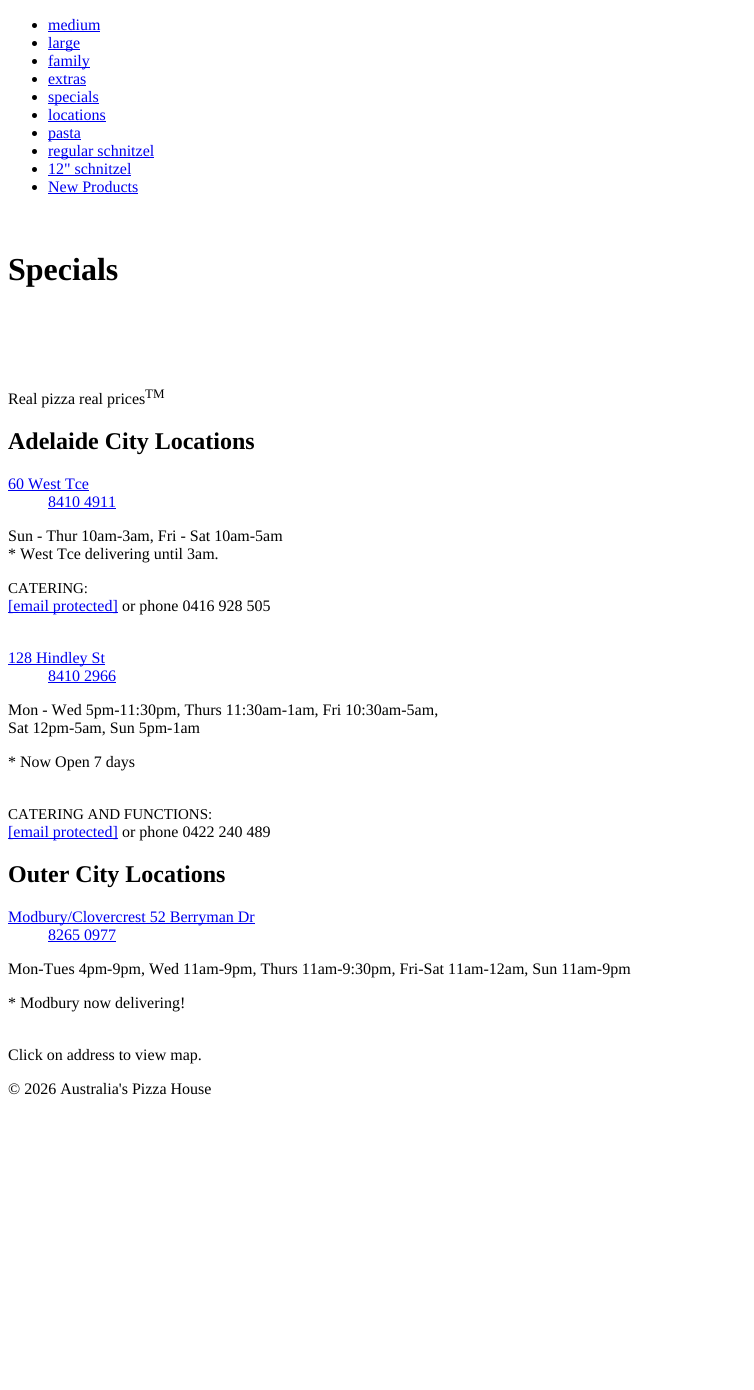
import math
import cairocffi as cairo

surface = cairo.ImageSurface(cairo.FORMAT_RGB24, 754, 1390)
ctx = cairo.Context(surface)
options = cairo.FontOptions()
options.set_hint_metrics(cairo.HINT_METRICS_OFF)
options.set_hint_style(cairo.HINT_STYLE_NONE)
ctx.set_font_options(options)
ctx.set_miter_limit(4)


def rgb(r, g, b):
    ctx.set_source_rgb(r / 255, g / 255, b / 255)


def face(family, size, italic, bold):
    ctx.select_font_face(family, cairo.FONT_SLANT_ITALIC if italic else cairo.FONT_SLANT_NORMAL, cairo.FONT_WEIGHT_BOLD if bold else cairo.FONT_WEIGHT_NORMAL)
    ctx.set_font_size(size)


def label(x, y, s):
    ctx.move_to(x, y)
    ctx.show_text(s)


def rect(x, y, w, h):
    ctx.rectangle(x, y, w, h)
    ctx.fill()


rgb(255, 255, 255)
ctx.paint()
rgb(0, 0, 0)
ctx.arc(34.5, 25.5, 2.5, 0, 2 * math.pi)
ctx.fill()
face('Liberation Serif', 16, 0, 0)
rgb(0, 0, 238)
label(48, 30, 'medium')
rect(48, 31, 52, 1)
rgb(0, 0, 0)
ctx.new_path()
ctx.arc(34.5, 43.5, 2.5, 0, 2 * math.pi)
ctx.fill()
rgb(0, 0, 238)
rect(48, 49, 32, 1)
label(48, 48, 'large')
rgb(0, 0, 0)
ctx.new_path()
ctx.arc(34.5, 61.5, 2.5, 0, 2 * math.pi)
ctx.fill()
rgb(0, 0, 238)
rect(48, 67, 42, 1)
label(48, 66, 'family')
rgb(0, 0, 0)
ctx.new_path()
ctx.arc(34.5, 79.5, 2.5, 0, 2 * math.pi)
ctx.fill()
rgb(0, 0, 238)
label(48, 84, 'extras')
rect(48, 85, 38, 1)
rgb(0, 0, 0)
ctx.new_path()
ctx.arc(34.5, 97.5, 2.5, 0, 2 * math.pi)
ctx.fill()
rgb(0, 0, 238)
rect(48, 103, 51, 1)
label(48, 102, 'specials')
rgb(0, 0, 0)
ctx.new_path()
ctx.arc(34.5, 115.5, 2.5, 0, 2 * math.pi)
ctx.fill()
rgb(0, 0, 238)
label(48, 120, 'locations')
rect(48, 121, 58, 1)
rgb(0, 0, 0)
ctx.new_path()
ctx.arc(34.5, 133.5, 2.5, 0, 2 * math.pi)
ctx.fill()
rgb(0, 0, 238)
rect(48, 139, 33, 1)
label(48, 138, 'pasta')
rgb(0, 0, 0)
ctx.new_path()
ctx.arc(34.5, 151.5, 2.5, 0, 2 * math.pi)
ctx.fill()
rgb(0, 0, 238)
rect(48, 157, 106, 1)
label(48, 156, 'regular schnitzel')
rgb(0, 0, 0)
ctx.new_path()
ctx.arc(34.5, 169.5, 2.5, 0, 2 * math.pi)
ctx.fill()
rgb(0, 0, 238)
label(48, 174, '12" schnitzel')
rect(48, 175, 83, 1)
rgb(0, 0, 0)
ctx.new_path()
ctx.arc(34.5, 187.5, 2.5, 0, 2 * math.pi)
ctx.fill()
rgb(0, 0, 238)
label(48, 192, 'New Products')
rect(48, 193, 90, 1)
face('Liberation Serif', 32, 0, 1)
rgb(0, 0, 0)
label(8, 280, 'Specials')
face('Liberation Serif', 16, 0, 0)
label(8, 404, 'Real pizza real prices')
face('Liberation Serif', 13, 0, 0)
label(145, 398, 'TM')
face('Liberation Serif', 24, 0, 1)
label(8, 449, 'Adelaide City Locations')
face('Liberation Serif', 16, 0, 0)
rgb(0, 0, 238)
label(8, 489, '60 West Tce')
rect(8, 490, 81, 1)
label(48, 507, '8410 4911')
rect(48, 508, 68, 1)
rgb(0, 0, 0)
label(8, 541, 'Sun - Thur 10am-3am, Fri - Sat 10am-5am')
label(8, 559, '* West Tce delivering until 3am.')
face('Liberation Serif', 15, 0, 0)
label(8, 593, 'CATERING:')
rgb(0, 0, 238)
rect(8, 612, 110, 1)
face('Liberation Serif', 16, 0, 0)
label(8, 611, '[email protected]')
rgb(0, 0, 0)
label(122, 611, 'or phone 0416 928 505')
rgb(0, 0, 238)
rect(8, 664, 97, 1)
label(8, 663, '128 Hindley St')
label(48, 681, '8410 2966')
rect(48, 682, 68, 1)
rgb(0, 0, 0)
label(8, 715, 'Mon - Wed 5pm-11:30pm, Thurs 11:30am-1am, Fri 10:30am-5am,')
label(8, 733, 'Sat 12pm-5am, Sun 5pm-1am')
label(8, 767, '* Now Open 7 days')
face('Liberation Serif', 15, 0, 0)
label(8, 819, 'CATERING AND FUNCTIONS:')
rgb(0, 0, 238)
rect(8, 838, 110, 1)
face('Liberation Serif', 16, 0, 0)
label(8, 837, '[email protected]')
rgb(0, 0, 0)
label(122, 837, 'or phone 0422 240 489')
face('Liberation Serif', 24, 0, 1)
label(8, 882, 'Outer City Locations')
rgb(0, 0, 238)
rect(8, 923, 247, 1)
face('Liberation Serif', 16, 0, 0)
label(8, 922, 'Modbury/Clovercrest 52 Berryman Dr')
label(48, 940, '8265 0977')
rect(48, 941, 68, 1)
rgb(0, 0, 0)
label(8, 974, 'Mon-Tues 4pm-9pm, Wed 11am-9pm, Thurs 11am-9:30pm, Fri-Sat 11am-12am, Sun 11am-9pm')
label(8, 1008, '* Modbury now delivering!')
label(8, 1060, 'Click on address to view map.')
label(8, 1094, '© 2026 Australia\'s Pizza House')
surface.write_to_png('render.png')
